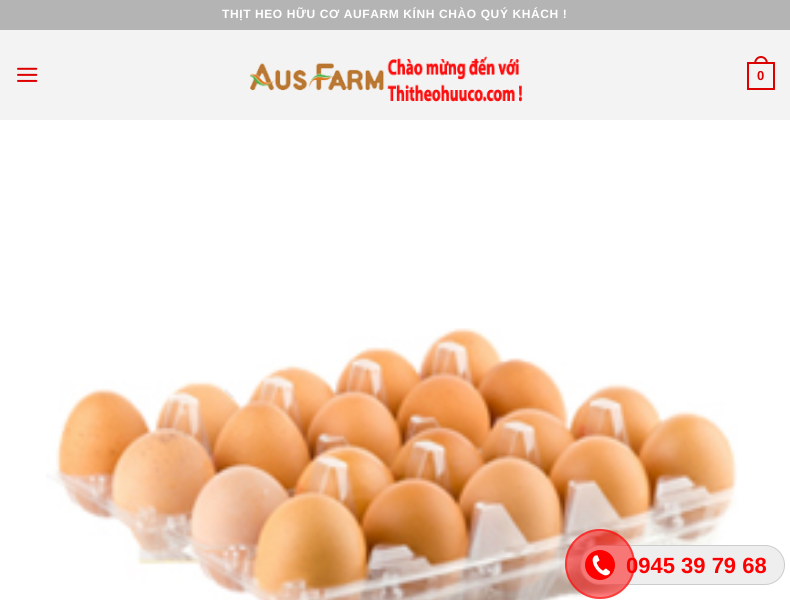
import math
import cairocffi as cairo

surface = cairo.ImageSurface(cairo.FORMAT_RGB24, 790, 600)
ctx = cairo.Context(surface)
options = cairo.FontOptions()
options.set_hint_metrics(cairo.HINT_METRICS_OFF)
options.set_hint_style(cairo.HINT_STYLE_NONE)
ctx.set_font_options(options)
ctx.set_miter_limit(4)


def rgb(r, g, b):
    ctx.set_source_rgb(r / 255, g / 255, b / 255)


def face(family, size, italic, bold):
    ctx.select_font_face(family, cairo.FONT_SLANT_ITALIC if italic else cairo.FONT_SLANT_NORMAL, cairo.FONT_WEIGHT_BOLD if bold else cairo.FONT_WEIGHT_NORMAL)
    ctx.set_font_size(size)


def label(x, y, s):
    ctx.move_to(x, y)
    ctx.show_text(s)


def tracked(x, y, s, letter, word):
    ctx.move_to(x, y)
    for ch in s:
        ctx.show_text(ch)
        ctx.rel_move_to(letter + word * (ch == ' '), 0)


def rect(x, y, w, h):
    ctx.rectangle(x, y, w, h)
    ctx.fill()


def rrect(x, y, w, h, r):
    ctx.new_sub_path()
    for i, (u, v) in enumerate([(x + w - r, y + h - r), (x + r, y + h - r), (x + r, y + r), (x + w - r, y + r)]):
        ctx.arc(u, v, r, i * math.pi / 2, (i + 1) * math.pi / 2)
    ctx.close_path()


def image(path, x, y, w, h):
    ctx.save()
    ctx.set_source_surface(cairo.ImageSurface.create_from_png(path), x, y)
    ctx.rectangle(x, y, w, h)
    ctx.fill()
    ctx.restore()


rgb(255, 255, 255)
ctx.paint()
rgb(180, 180, 180)
rect(0, 0, 790, 30)
face('Liberation Sans', 12, 0, 1)
rgb(255, 255, 255)
tracked(222, 18, 'THỊT HEO HỮU CƠ AUFARM KÍNH CHÀO QUÝ KHÁCH !', 0.6, 0)
rgb(243, 243, 243)
rect(0, 30, 790, 90)
image('image0.png', 17, 67, 21, 15)
image('image1.png', 250, 56, 273, 46)
ctx.rectangle(748, 63, 26, 26)
rgb(221, 0, 0)
ctx.stroke()
ctx.set_fill_rule(cairo.FILL_RULE_EVEN_ODD)
ctx.new_path()
ctx.move_to(761, 56)
ctx.curve_to(765.5, 56, 768, 60, 768, 64)
ctx.line_to(754, 64)
ctx.curve_to(754, 60, 756.5, 56, 761, 56)
ctx.close_path()
ctx.move_to(761, 58)
ctx.curve_to(764.5, 58, 766, 61, 766, 64)
ctx.line_to(756, 64)
ctx.curve_to(756, 61, 757.5, 58, 761, 58)
ctx.close_path()
ctx.fill()
face('Liberation Sans', 13, 0, 1)
label(757, 80, '0')
image('image2.png', 46, 328, 692, 272)
rgb(238, 238, 238)
rrect(580.5, 545.5, 204, 39, 19.5)
ctx.fill_preserve()
rgb(204, 204, 204)
ctx.set_line_width(1)
ctx.stroke()
face('Liberation Sans', 22, 0, 1)
rgb(255, 0, 0)
label(626, 573, '0945 39 79 68')
ctx.set_source_rgba(1, 0, 0, 0.5)
ctx.new_path()
ctx.arc(600, 564, 35, 0, 2 * math.pi)
ctx.fill()
ctx.arc(600, 564, 34, 0, 2 * math.pi)
ctx.set_line_width(2)
ctx.stroke()
rgb(255, 0, 0)
ctx.arc(600, 565, 15, 0, 2 * math.pi)
ctx.fill()
image('image3.png', 592, 555, 18, 21)
surface.write_to_png('render.png')
